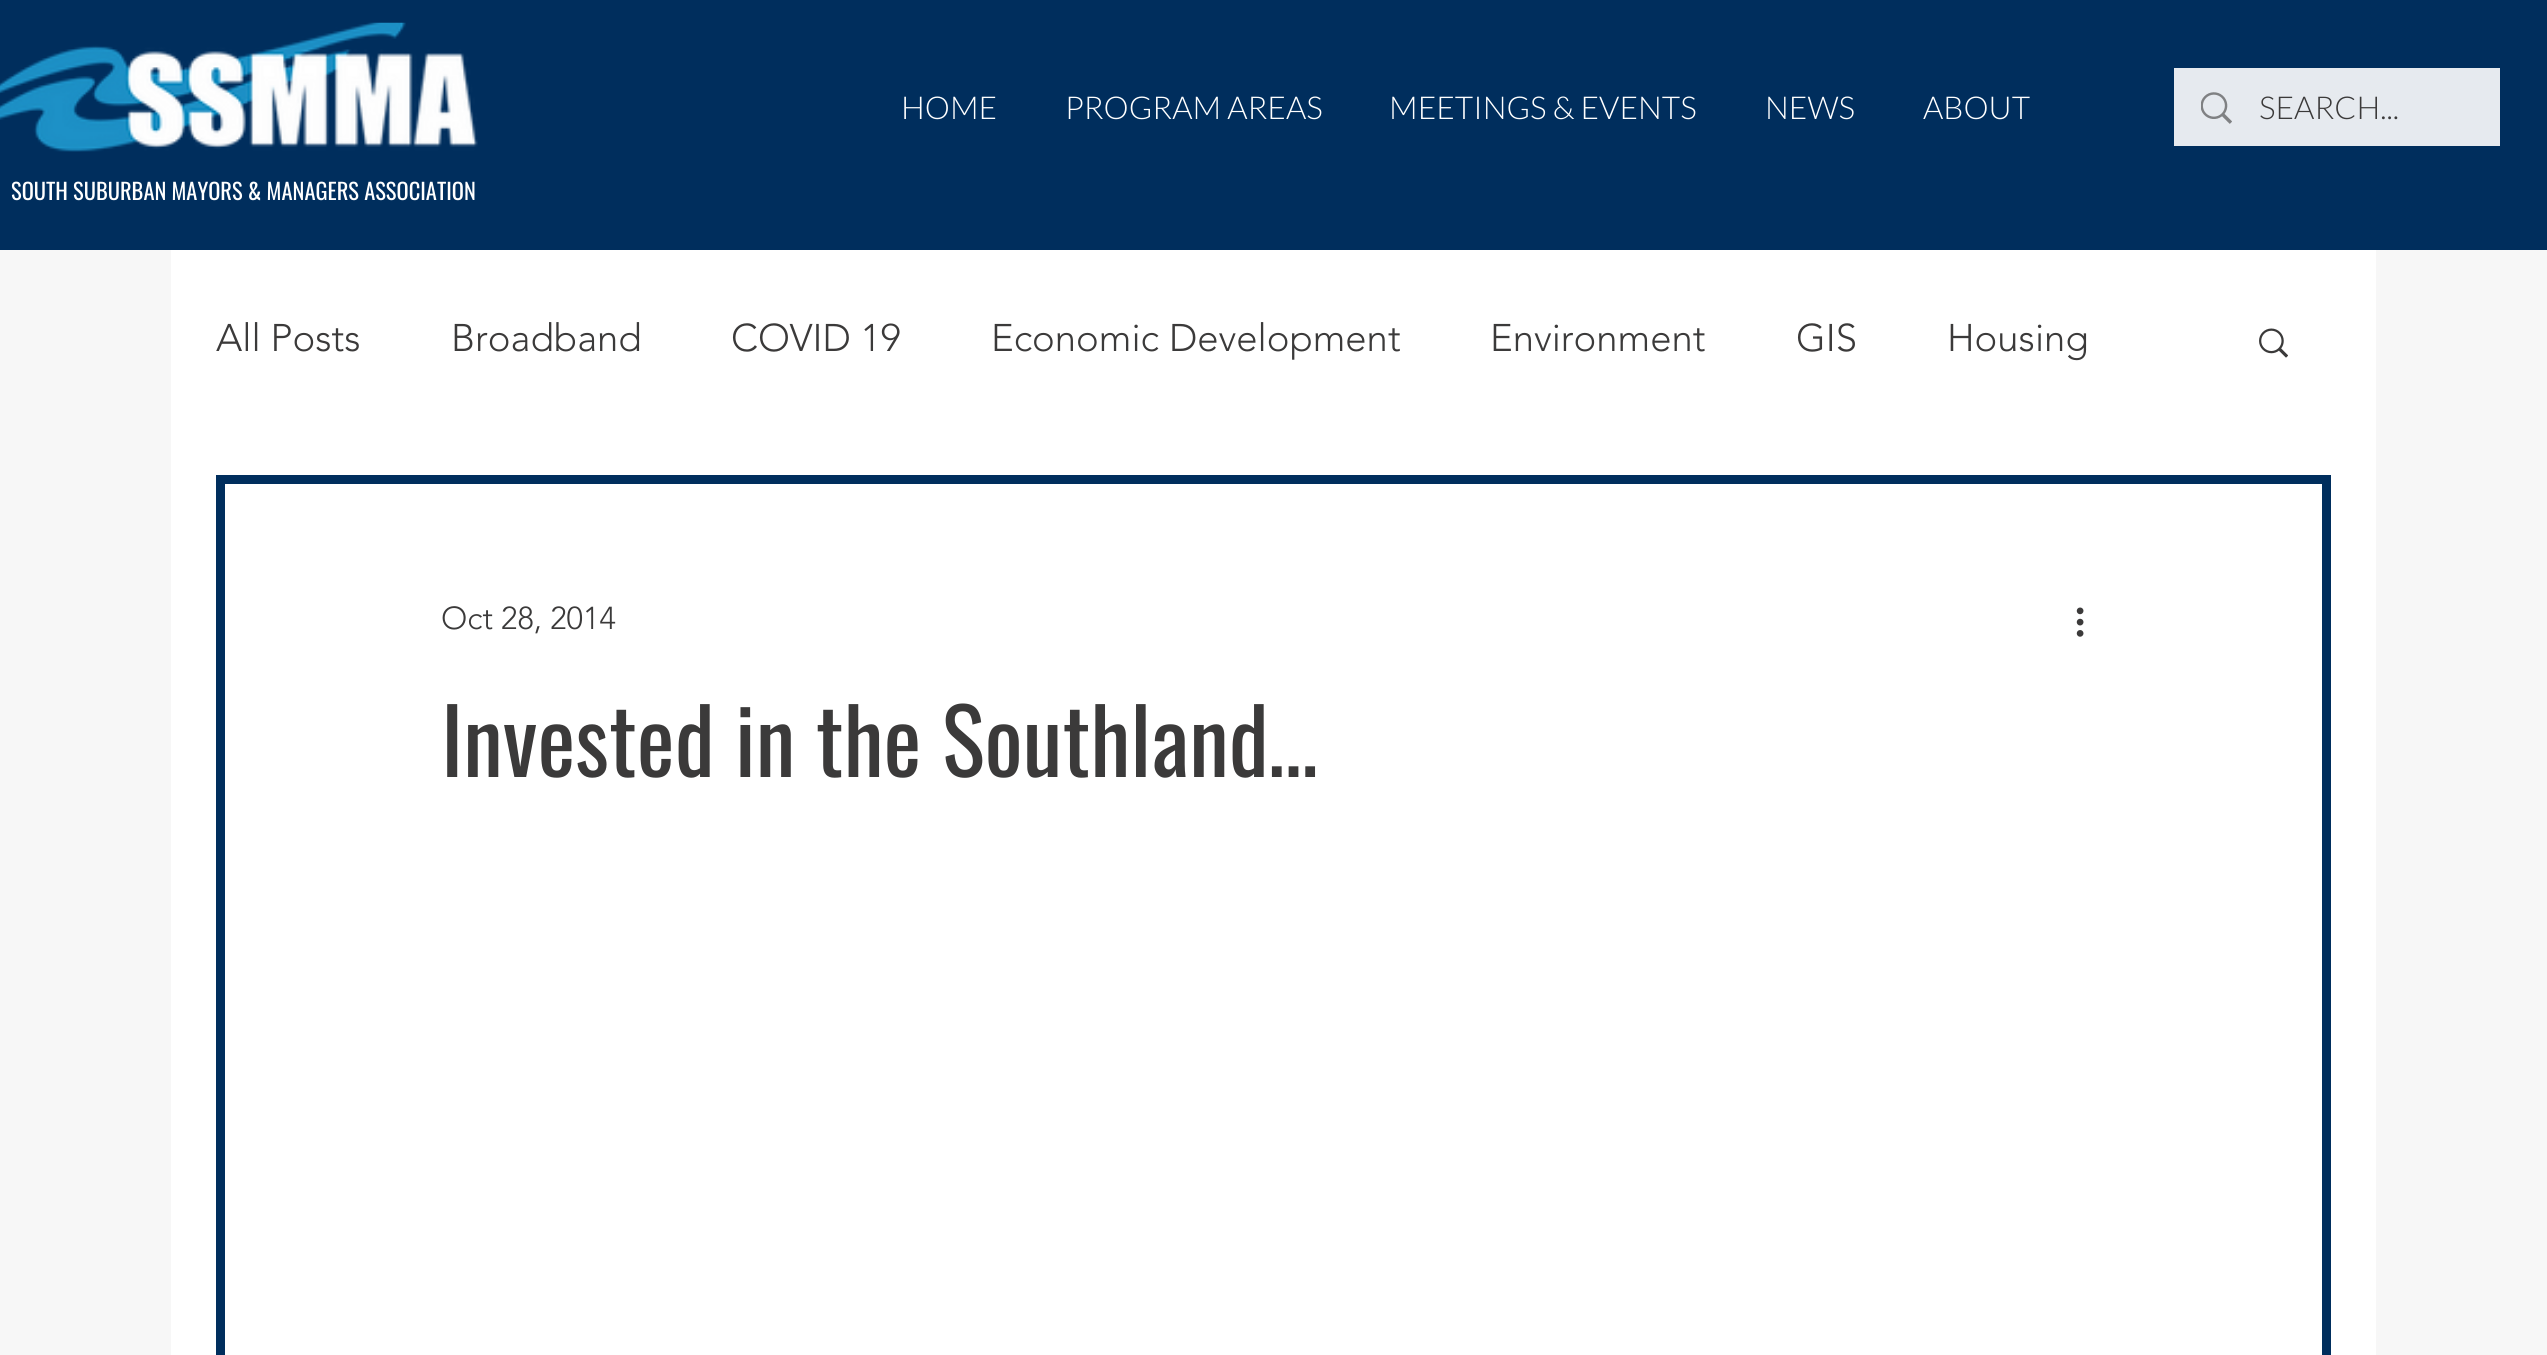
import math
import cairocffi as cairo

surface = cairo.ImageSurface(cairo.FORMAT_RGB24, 2547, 1355)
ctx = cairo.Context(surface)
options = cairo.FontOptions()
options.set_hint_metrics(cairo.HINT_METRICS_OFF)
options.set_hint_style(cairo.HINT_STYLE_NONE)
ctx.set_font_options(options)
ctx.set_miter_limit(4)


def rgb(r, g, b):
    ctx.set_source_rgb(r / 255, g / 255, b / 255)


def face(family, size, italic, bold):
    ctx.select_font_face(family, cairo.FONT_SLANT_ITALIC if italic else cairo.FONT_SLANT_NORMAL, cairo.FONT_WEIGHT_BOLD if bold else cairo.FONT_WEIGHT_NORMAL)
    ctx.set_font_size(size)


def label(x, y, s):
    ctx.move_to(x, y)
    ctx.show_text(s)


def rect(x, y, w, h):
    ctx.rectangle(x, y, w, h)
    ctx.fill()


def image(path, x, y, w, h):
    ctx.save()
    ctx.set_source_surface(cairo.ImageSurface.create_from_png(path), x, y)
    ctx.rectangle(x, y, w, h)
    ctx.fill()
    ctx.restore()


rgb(247, 247, 247)
ctx.paint()
rgb(0, 46, 93)
rect(0, 0, 2547, 250)
image('image0.png', 0, 22, 478, 130)
face('Lato Light', 31.5, 0, 0)
rgb(255, 255, 255)
label(901, 119, 'HOME')
label(1065, 119, 'PROGRAM AREAS')
label(1389, 119, 'MEETINGS & EVENTS')
label(1765, 119, 'NEWS')
label(1923, 119, 'ABOUT')
rgb(230, 234, 239)
rect(2174, 68, 326, 78)
image('image1.png', 2201, 92, 31, 32)
rgb(59, 58, 58)
label(2259, 119, 'SEARCH...')
face('Oswald', 22.5, 0, 0)
rgb(255, 255, 255)
label(11, 200, 'SOUTH SUBURBAN MAYORS & MANAGERS ASSOCIATION')
rect(171, 250, 2205, 1105)
face('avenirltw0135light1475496 Light', 38.25, 0, 0)
rgb(59, 58, 58)
label(216, 351, 'All Posts')
label(451, 351, 'Broadband')
label(731, 351, 'COVID 19')
label(991, 351, 'Economic Development')
label(1490, 351, 'Environment')
label(1796, 351, 'GIS')
label(1947, 351, 'Housing')
image('image2.png', 2259, 328, 29, 30)
ctx.rectangle(220.5, 479.5, 2106, 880)
rgb(0, 46, 93)
ctx.set_line_width(9)
ctx.stroke()
face('avenirltw0135light1475496 Light', 31.5, 0, 0)
rgb(59, 58, 58)
label(441, 629, 'Oct 28, 2014')
image('image3.png', 2076, 607, 8, 30)
face('Oswald', 90, 0, 0)
label(441, 777, 'Invested in the Southland…')
surface.write_to_png('render.png')
